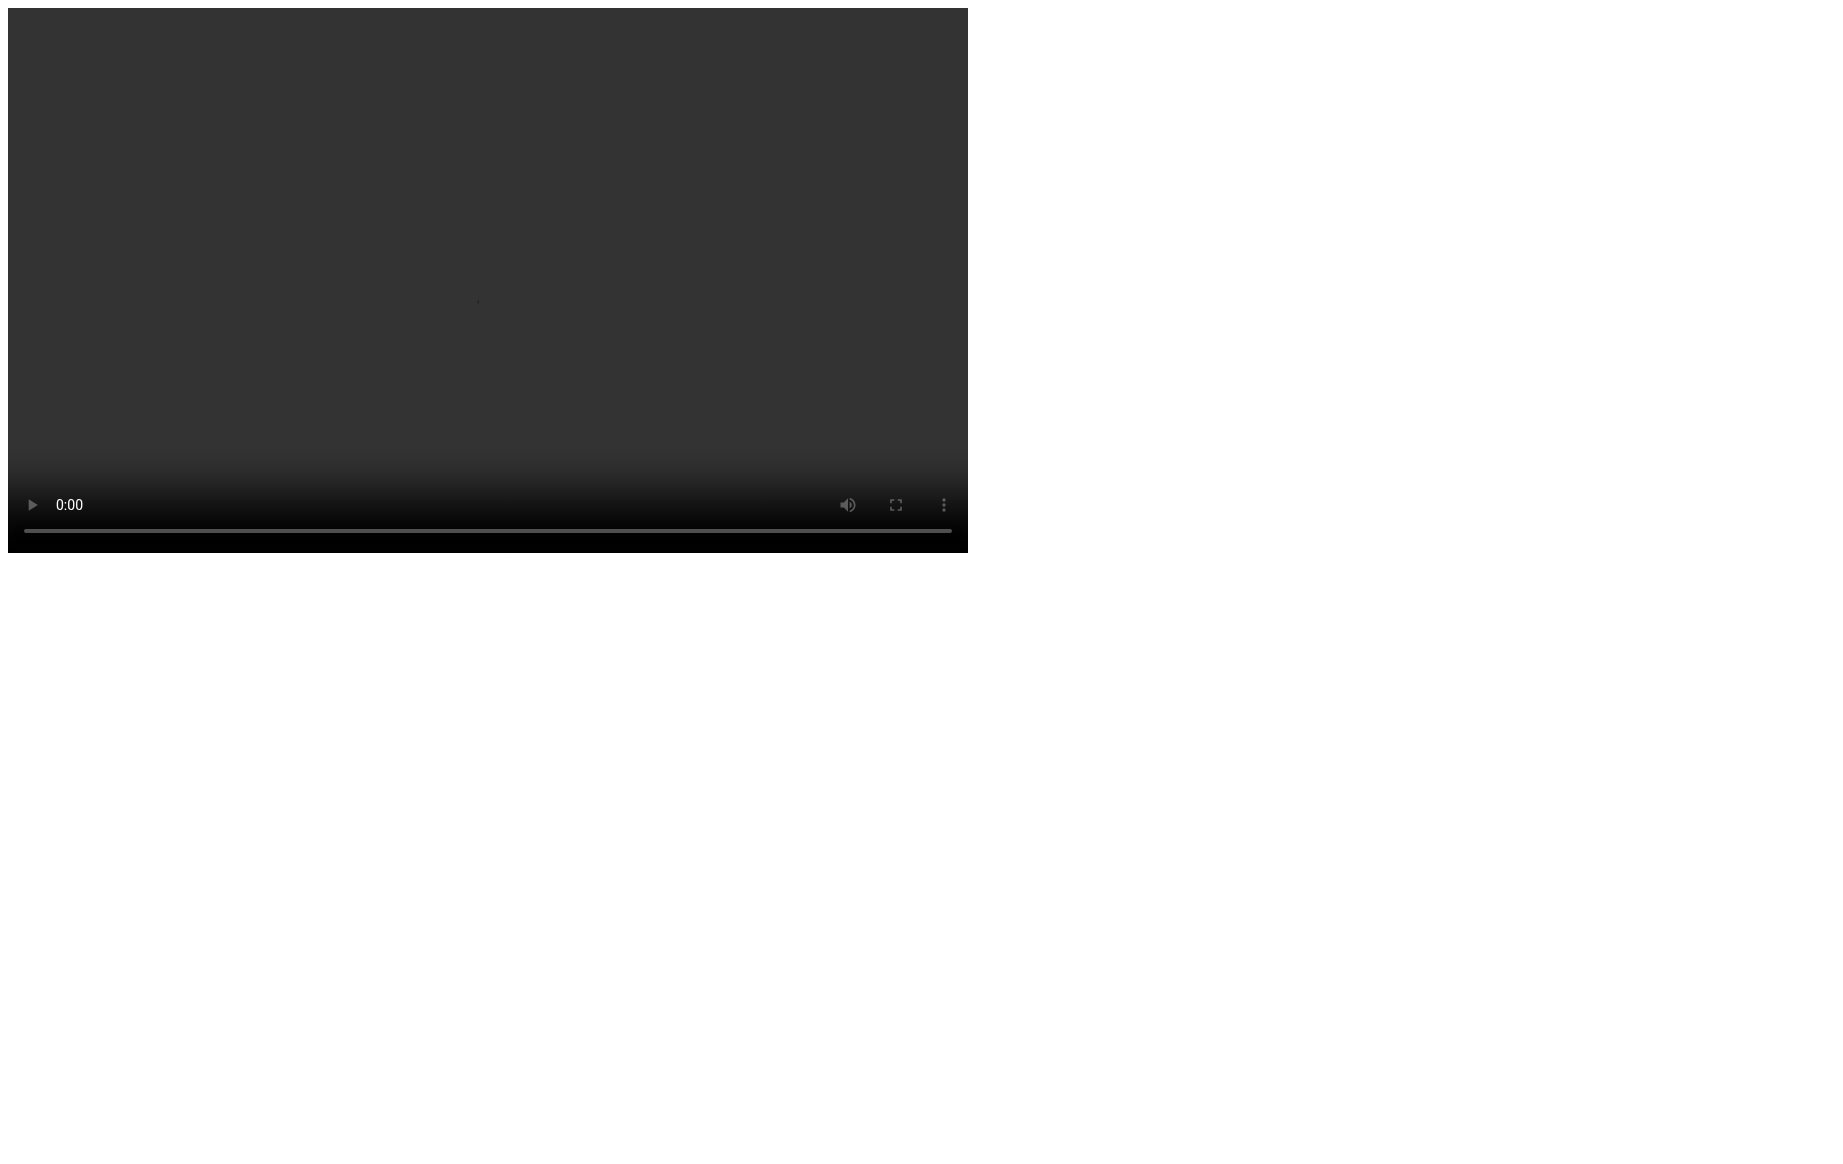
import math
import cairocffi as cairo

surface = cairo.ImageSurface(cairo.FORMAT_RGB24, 1843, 1164)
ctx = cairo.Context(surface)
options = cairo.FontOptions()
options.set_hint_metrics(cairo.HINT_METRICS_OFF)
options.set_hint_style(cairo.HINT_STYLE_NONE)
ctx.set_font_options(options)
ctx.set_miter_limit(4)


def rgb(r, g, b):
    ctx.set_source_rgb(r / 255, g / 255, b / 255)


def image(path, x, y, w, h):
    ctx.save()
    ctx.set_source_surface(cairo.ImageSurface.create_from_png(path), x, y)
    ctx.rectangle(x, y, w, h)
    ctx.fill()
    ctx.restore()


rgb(255, 255, 255)
ctx.paint()
image('image0.png', 8, 8, 960, 545)
surface.write_to_png('render.png')
